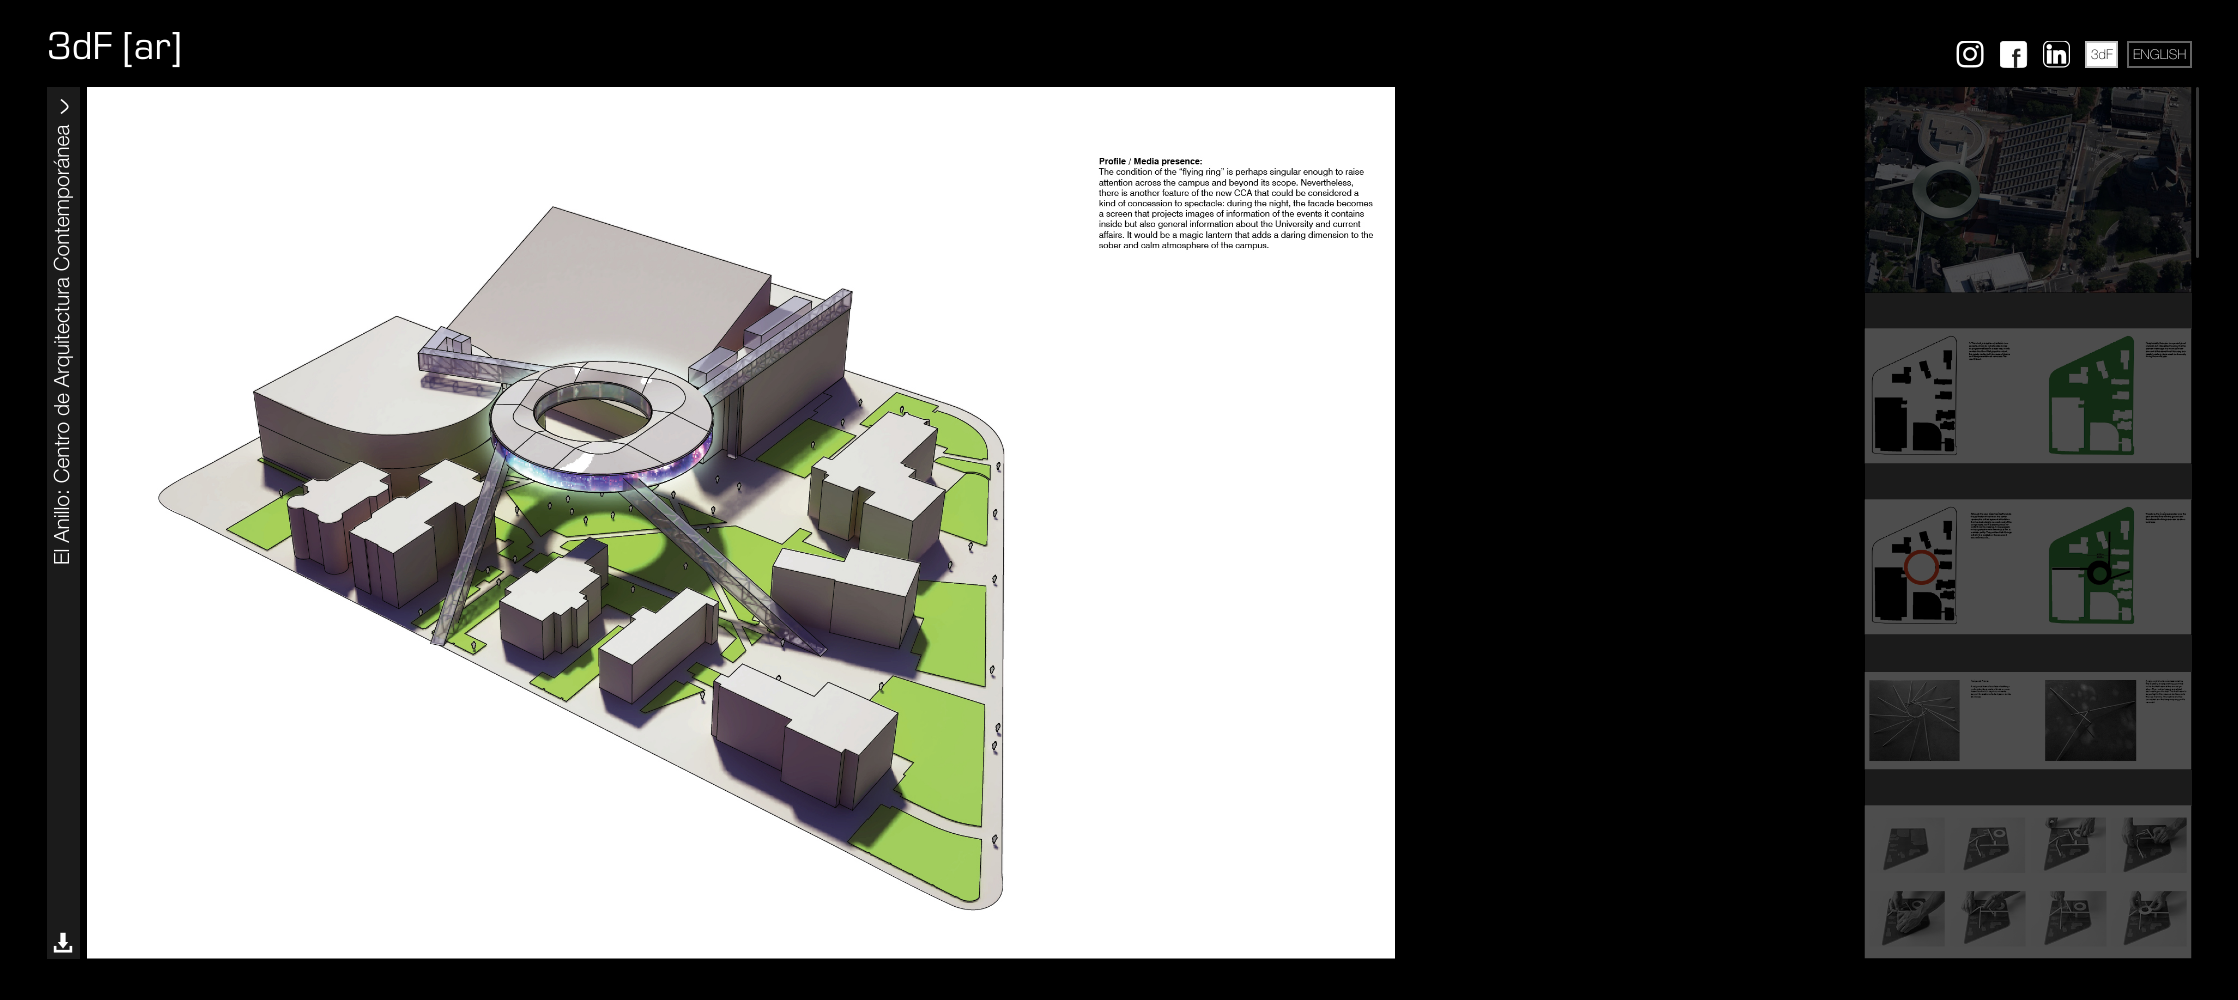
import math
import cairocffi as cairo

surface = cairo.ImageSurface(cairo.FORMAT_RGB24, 2238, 1000)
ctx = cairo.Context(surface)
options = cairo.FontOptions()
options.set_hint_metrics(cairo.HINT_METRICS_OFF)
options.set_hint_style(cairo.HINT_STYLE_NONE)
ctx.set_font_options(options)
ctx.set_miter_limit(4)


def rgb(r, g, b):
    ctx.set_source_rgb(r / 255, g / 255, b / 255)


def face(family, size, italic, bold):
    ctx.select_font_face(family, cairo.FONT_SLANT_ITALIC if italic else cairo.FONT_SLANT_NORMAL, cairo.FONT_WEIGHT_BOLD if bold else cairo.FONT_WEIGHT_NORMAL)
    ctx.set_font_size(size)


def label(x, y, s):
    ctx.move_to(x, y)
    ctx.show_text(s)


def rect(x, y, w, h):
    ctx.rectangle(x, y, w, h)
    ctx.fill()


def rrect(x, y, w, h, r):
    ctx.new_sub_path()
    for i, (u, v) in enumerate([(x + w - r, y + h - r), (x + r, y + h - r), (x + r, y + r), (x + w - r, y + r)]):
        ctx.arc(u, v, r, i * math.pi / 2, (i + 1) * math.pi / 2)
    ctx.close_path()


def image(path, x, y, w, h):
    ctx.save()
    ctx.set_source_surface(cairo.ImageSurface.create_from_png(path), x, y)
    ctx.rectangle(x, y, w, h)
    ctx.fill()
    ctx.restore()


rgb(0, 0, 0)
ctx.paint()
face('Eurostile', 40.5, 0, 0)
rgb(255, 255, 255)
label(47, 59, '3dF [ar]')
image('image0.png', 1956, 41, 28, 27)
image('image1.png', 2000, 41, 28, 27)
image('image2.png', 2043, 41, 27, 27)
ctx.rectangle(2086, 42, 31, 25)
ctx.fill_preserve()
rgb(195, 195, 195)
ctx.stroke()
face('Helvetica Neue ExtraLight', 13.5, 0, 0)
rgb(0, 0, 0)
label(2091, 59, '3dF')
ctx.rectangle(2128, 42, 63, 25)
rgb(99, 99, 99)
ctx.stroke()
rgb(255, 255, 255)
label(2133, 59, 'ENGLISH')
rgb(27, 27, 27)
rect(47, 87, 33, 872)
ctx.new_path()
ctx.move_to(61, 113.5)
ctx.curve_to(69.5, 106.5, 70.5, 107.5, 61, 99.5)
rgb(255, 255, 255)
ctx.set_line_width(1.6)
ctx.stroke()
image('image3.png', 87, 87, 1308, 872)
rgb(27, 27, 27)
rect(1865, 293, 327, 513)
image('image4.png', 1864, 87, 328, 206)
rgb(0, 0, 0)
rect(1865, 329, 327, 135)
image('image5.png', 1864, 328, 328, 136)
rect(1865, 500, 327, 135)
image('image6.png', 1864, 499, 328, 136)
rect(1865, 672, 327, 98)
image('image7.png', 1864, 672, 328, 98)
image('image8.png', 1864, 805, 328, 154)
face('Helvetica Neue Light', 21, 0, 0)
rgb(255, 255, 255)
ctx.save()
ctx.translate(69, 565)
ctx.rotate(-90 * math.pi / 180)
label(0, 0, 'El Anillo: Centro de Arquitectura Contemporánea')
ctx.restore()
image('image9.png', 53, 932, 20, 21)
rgb(54, 54, 54)
rrect(2196, 87, 3, 171, 1.5)
ctx.fill()
surface.write_to_png('render.png')
